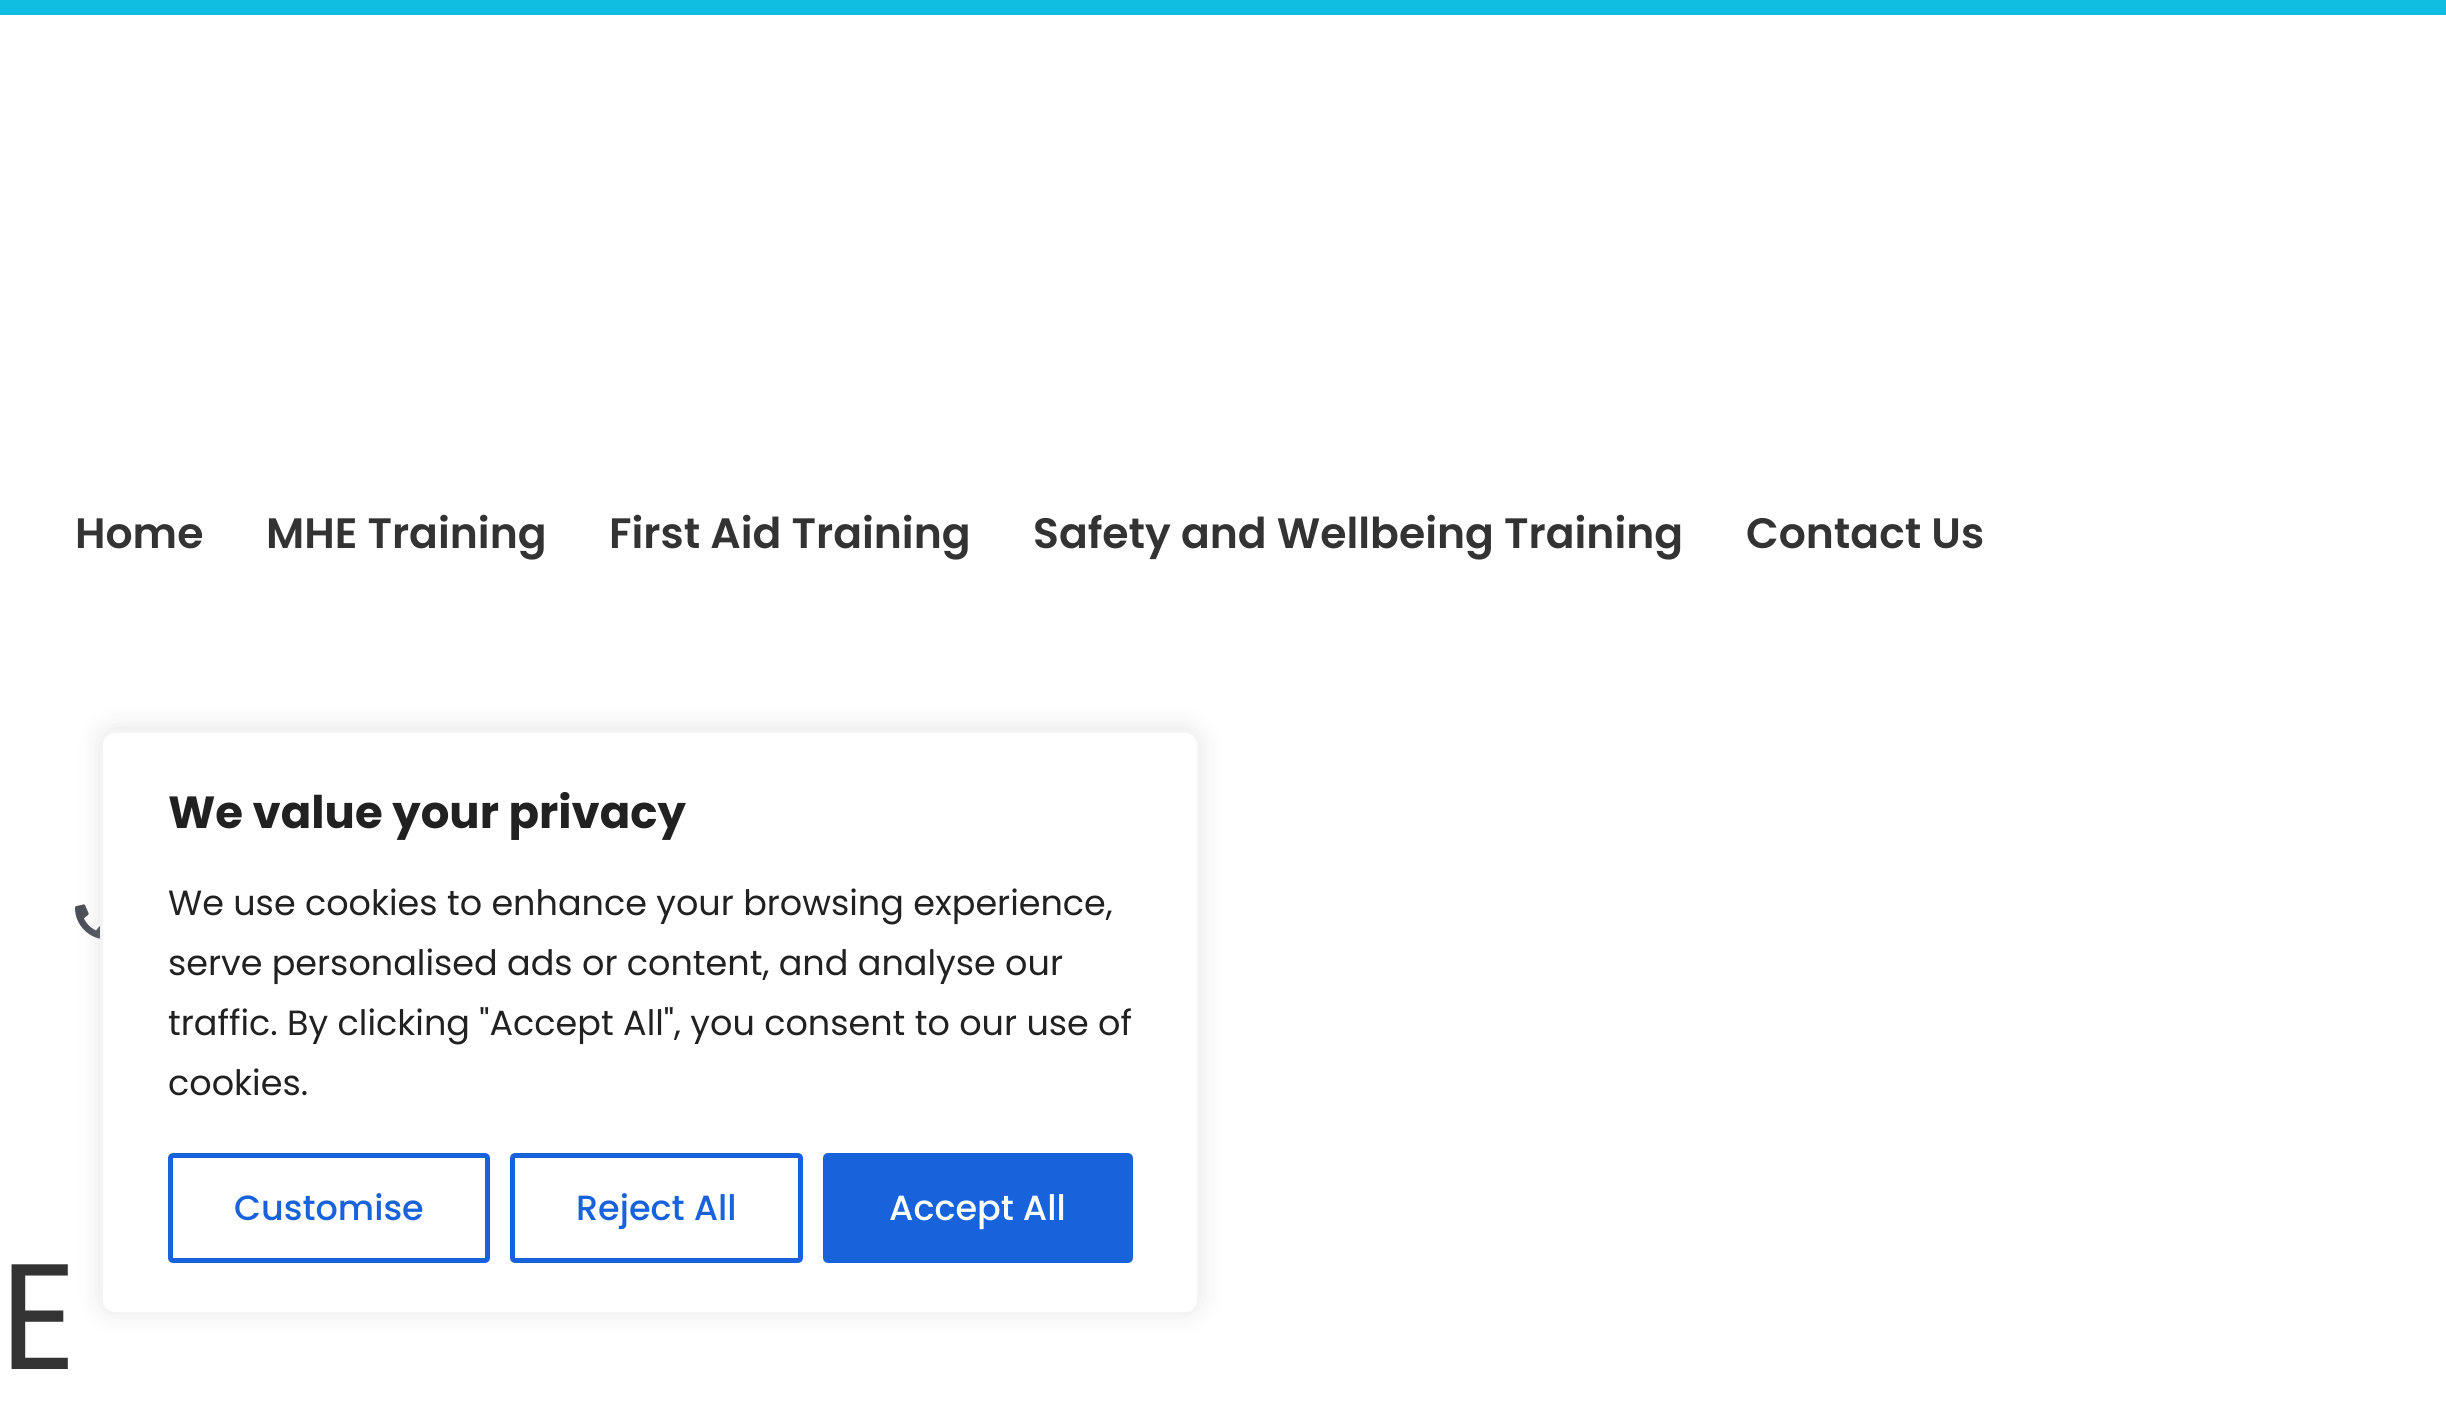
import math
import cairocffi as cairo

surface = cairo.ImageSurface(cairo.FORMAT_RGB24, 2446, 1413)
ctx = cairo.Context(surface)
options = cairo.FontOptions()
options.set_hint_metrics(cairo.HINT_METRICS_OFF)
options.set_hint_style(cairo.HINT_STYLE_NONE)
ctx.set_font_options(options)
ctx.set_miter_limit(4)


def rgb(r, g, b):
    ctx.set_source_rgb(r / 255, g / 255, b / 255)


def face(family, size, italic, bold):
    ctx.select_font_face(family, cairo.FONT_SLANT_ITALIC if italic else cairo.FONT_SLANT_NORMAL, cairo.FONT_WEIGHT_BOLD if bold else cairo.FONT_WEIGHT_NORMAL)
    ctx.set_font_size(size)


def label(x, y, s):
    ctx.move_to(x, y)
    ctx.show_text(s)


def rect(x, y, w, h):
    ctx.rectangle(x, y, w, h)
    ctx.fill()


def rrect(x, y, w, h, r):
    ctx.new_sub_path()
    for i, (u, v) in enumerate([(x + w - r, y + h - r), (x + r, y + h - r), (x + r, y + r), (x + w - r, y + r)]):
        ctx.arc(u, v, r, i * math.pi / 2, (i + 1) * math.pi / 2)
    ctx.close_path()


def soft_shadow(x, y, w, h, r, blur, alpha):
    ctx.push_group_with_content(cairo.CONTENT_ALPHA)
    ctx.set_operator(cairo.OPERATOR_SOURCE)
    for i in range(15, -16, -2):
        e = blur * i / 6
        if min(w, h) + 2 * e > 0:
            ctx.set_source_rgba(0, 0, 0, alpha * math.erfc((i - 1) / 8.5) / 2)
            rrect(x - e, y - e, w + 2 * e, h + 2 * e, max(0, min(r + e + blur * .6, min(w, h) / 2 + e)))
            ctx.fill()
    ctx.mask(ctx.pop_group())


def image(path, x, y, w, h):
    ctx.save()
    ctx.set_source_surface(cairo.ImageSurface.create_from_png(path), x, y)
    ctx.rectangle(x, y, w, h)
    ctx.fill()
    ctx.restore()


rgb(255, 255, 255)
ctx.paint()
rgb(14, 189, 224)
rect(0, 0, 2446, 15)
face('Poppins SemiBold', 42.5, 0, 0)
rgb(51, 51, 51)
label(75, 548, 'Home')
label(266, 548, 'MHE Training')
label(609, 548, 'First Aid Training')
label(1033, 548, 'Safety and Wellbeing Training')
label(1746, 548, 'Contact Us')
image('image0.png', 75, 904, 25, 35)
face('Poppins', 150, 0, 0)
label(0, 1369, 'E')
rgb(172, 171, 171)
soft_shadow(100, 728, 1100, 585, 15, 12.5, 0.3)
rgb(255, 255, 255)
rrect(101.5, 731.5, 1097, 582, 13.5)
ctx.fill_preserve()
rgb(244, 244, 244)
ctx.set_line_width(3)
ctx.stroke()
face('Poppins', 45, 0, 1)
rgb(33, 33, 33)
label(168, 828, 'We value your privacy')
face('Poppins', 35, 0, 0)
label(168, 915, 'We use cookies to enhance your browsing experience,')
label(168, 975, 'serve personalised ads or content, and analyse our')
label(168, 1035, 'traffic. By clicking "Accept All", you consent to our use of')
label(168, 1095, 'cookies.')
rrect(170.5, 1155.5, 317, 105, 2.5)
rgb(24, 99, 220)
ctx.set_line_width(5)
ctx.stroke()
face('Poppins Medium', 35, 0, 0)
label(234, 1220, 'Customise')
rrect(512.5, 1155.5, 288, 105, 2.5)
ctx.stroke()
label(576, 1220, 'Reject All')
rrect(825.5, 1155.5, 305, 105, 2.5)
ctx.fill_preserve()
ctx.stroke()
rgb(255, 255, 255)
label(889, 1220, 'Accept All')
surface.write_to_png('render.png')
